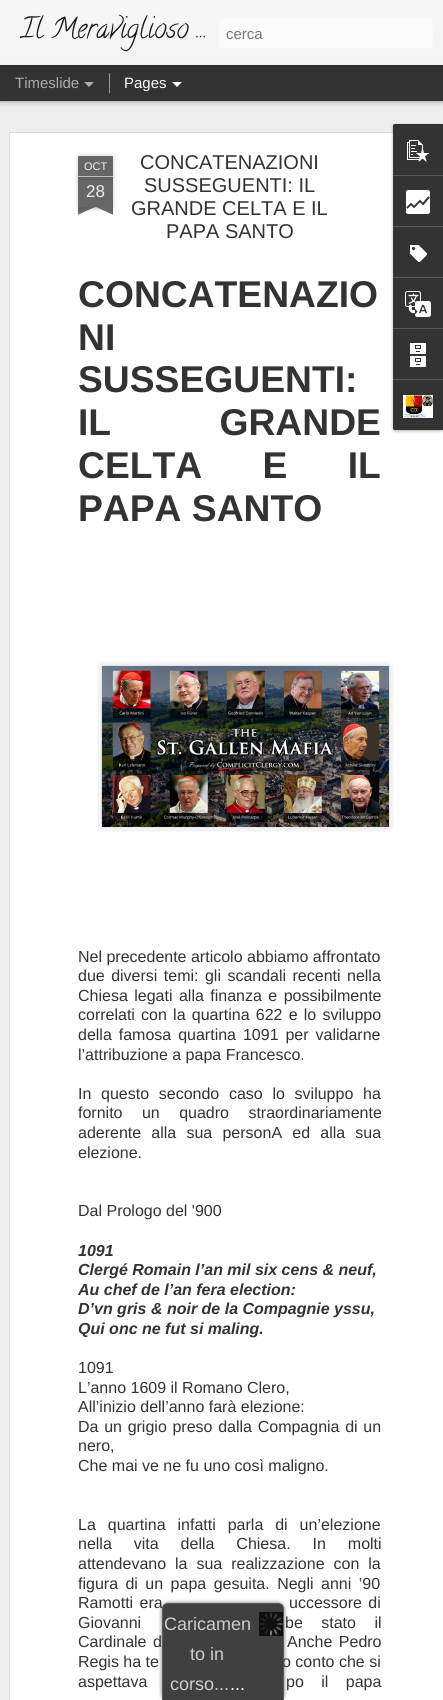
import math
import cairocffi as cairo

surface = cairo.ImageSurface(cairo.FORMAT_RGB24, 443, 1700)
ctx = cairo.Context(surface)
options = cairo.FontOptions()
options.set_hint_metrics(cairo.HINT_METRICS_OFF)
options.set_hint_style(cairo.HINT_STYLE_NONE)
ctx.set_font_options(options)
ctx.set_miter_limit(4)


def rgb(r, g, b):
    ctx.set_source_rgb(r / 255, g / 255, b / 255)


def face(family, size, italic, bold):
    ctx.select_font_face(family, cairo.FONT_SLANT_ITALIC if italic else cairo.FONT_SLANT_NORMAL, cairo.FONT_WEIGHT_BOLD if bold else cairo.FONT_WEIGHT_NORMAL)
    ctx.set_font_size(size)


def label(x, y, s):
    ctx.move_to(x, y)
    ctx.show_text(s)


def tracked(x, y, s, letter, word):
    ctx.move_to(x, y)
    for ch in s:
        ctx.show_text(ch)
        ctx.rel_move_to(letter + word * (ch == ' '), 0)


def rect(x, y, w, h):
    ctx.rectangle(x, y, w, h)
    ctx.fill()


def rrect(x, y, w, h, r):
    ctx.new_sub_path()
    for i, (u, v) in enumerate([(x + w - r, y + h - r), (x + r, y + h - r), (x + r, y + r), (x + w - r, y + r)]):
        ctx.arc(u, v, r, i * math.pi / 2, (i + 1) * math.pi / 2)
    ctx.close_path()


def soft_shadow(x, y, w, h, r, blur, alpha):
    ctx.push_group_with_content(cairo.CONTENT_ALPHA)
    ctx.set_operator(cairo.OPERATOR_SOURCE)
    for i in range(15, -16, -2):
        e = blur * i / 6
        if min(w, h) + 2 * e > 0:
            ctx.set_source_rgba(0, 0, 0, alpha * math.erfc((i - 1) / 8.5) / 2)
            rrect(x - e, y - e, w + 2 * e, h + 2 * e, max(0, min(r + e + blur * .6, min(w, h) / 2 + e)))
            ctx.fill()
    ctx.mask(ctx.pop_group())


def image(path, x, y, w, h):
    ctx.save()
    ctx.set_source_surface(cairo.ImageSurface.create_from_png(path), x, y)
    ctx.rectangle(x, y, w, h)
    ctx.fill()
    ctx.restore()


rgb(51, 51, 51)
ctx.paint()
rgb(238, 238, 238)
rect(0, 101, 443, 1599)
rgb(0, 0, 0)
soft_shadow(0, 65, 443, 35, 0, 4, 0.5)
rgb(51, 51, 51)
rect(0, 65, 443, 35)
rgb(153, 153, 153)
rect(109, 73, 1, 20)
rgb(0, 0, 0)
soft_shadow(0, 0, 443, 65, 0, 2.5, 0.3)
gradient = cairo.LinearGradient(0, 0, 0, 65)
gradient.add_color_stop_rgba(0, 0.969, 0.969, 0.969, 1)
gradient.add_color_stop_rgba(1, 0.957, 0.957, 0.957, 1)
ctx.set_source(gradient)
rect(0, 0, 443, 65)
ctx.save()
ctx.rectangle(20, 0, 188, 65)
ctx.clip()
face('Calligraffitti', 28, 0, 0)
rgb(25, 25, 25)
label(20, 37, 'Il Meraviglioso …')
ctx.restore()
rgb(250, 250, 250)
rrect(219, 18, 214, 30, 3)
ctx.fill()
face('Liberation Sans', 15, 0, 0)
rgb(117, 117, 117)
label(226, 39, 'cerca')
rgb(173, 173, 173)
label(15, 88, 'Timeslide')
ctx.new_path()
ctx.move_to(84, 82)
ctx.line_to(94, 82)
ctx.line_to(89, 87)
ctx.close_path()
ctx.fill()
rgb(255, 255, 255)
label(124, 88, 'Pages')
ctx.new_path()
ctx.move_to(172, 82)
ctx.line_to(182, 82)
ctx.line_to(177, 87)
ctx.close_path()
ctx.fill()
rect(8, 131, 435, 1569)
image('image0.png', 8, 131, 385, 1569)
rgb(0, 0, 0)
soft_shadow(78, 177, 35, 30, 0, 2.5, 0.2)
rgb(102, 102, 102)
rect(78, 177, 35, 30)
rgb(0, 0, 0)
soft_shadow(78, 156, 35, 21, 1, 2.5, 0.2)
rgb(102, 102, 102)
ctx.new_path()
ctx.move_to(79, 156)
ctx.line_to(112, 156)
ctx.curve_to(112.5, 156, 113, 156.5, 113, 157)
ctx.line_to(113, 177)
ctx.line_to(78, 177)
ctx.line_to(78, 157)
ctx.curve_to(78, 156.5, 78.5, 156, 79, 156)
ctx.close_path()
ctx.fill()
rgb(194, 194, 194)
rect(78, 176, 35, 1)
face('Liberation Sans', 11, 0, 0)
rgb(238, 238, 238)
label(84, 170, 'OCT')
face('Liberation Sans', 17, 0, 0)
label(86, 197, '28')
ctx.save()
ctx.rectangle(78, 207, 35, 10)
ctx.clip()
rgb(0, 0, 0)
soft_shadow(69, 197, 50, 10, 0, 2.5, 0.2)
ctx.restore()
ctx.save()
ctx.rectangle(78, 207, 35, 10)
ctx.clip()
rgb(102, 102, 102)
ctx.new_path()
ctx.move_to(69, 208)
ctx.line_to(115, 187)
ctx.line_to(119, 196)
ctx.line_to(73, 217)
ctx.close_path()
ctx.fill()
ctx.restore()
ctx.save()
ctx.rectangle(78, 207, 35, 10)
ctx.clip()
rgb(0, 0, 0)
soft_shadow(72, 197, 50, 10, 0, 2.5, 0.2)
ctx.restore()
ctx.save()
ctx.rectangle(78, 207, 35, 10)
ctx.clip()
rgb(102, 102, 102)
ctx.new_path()
ctx.move_to(76, 187)
ctx.line_to(122, 208)
ctx.line_to(118, 217)
ctx.line_to(72, 196)
ctx.close_path()
ctx.fill()
ctx.restore()
face('Liberation Sans', 20, 0, 0)
rgb(51, 51, 51)
label(140, 169, 'CONCATENAZIONI')
label(144, 192, 'SUSSEGUENTI: IL')
label(131, 215, 'GRANDE CELTA E IL')
label(166, 238, 'PAPA SANTO')
face('Liberation Sans', 37.25, 0, 1)
label(78, 307, 'CONCATENAZIO')
label(78, 350, 'NI')
label(78, 392, 'SUSSEGUENTI:')
tracked(78, 435, 'IL GRANDE', 0, 98)
tracked(78, 478, 'CELTA E IL', 0, 50)
label(78, 521, 'PAPA SANTO')
image('image1.png', 97, 661, 297, 171)
image('image2.png', 101, 665, 289, 162)
face('Liberation Sans', 16, 0, 0)
label(78, 962, 'Nel precedente articolo abbiamo affrontato')
tracked(78, 981, 'due diversi temi: gli scandali recenti nella', 0, 2)
tracked(78, 1001, 'Chiesa legati alla finanza e possibilmente', 0, 2)
tracked(78, 1020, 'correlati con la quartina 622 e lo sviluppo', 0, 1.75)
tracked(78, 1040, 'della famosa quartina 1091 per validarne', 0, 2.5)
label(78, 1060, 'l’attribuzione a papa Francesco.')
tracked(78, 1099, 'In questo secondo caso lo sviluppo ha', 0, 5.25)
tracked(78, 1118, 'fornito un quadro straordinariamente', 0, 15)
tracked(78, 1138, 'aderente alla sua personA ed alla sua', 0, 5.75)
label(78, 1158, 'elezione.')
label(78, 1216, 'Dal Prologo del \'900')
face('Liberation Sans', 16, 1, 1)
label(78, 1256, '1091')
label(78, 1275, 'Clergé Romain l’an mil six cens & neuf,')
label(78, 1295, 'Au chef de l’an fera election:')
label(78, 1314, 'D’vn gris & noir de la Compagnie yssu,')
label(78, 1334, 'Qui onc ne fut si maling.')
face('Liberation Sans', 16, 0, 0)
label(78, 1373, '1091')
label(78, 1393, 'L’anno 1609 il Romano Clero,')
label(78, 1412, 'All’inizio dell’anno farà elezione:')
tracked(78, 1432, 'Da un grigio preso dalla Compagnia di un', 0, 1.25)
label(78, 1451, 'nero,')
label(78, 1471, 'Che mai ve ne fu uno così maligno.')
tracked(78, 1530, 'La quartina infatti parla di un’elezione', 0, 7.5)
tracked(78, 1549, 'nella vita della Chiesa. In molti', 0, 17.5)
tracked(78, 1569, 'attendevano la sua realizzazione con la', 0, 4.5)
tracked(78, 1589, 'figura di un papa gesuita. Negli anni ’90', 0, 3)
tracked(78, 1608, 'Ramotti era', 0, 2)
tracked(289, 1608, 'uccessore di', 0, 2)
tracked(78, 1628, 'Giovanni', 0, 14)
tracked(285, 1628, 'be stato il', 0, 14)
tracked(78, 1647, 'Cardinale d', 0, 2)
tracked(287, 1647, 'Anche Pedro', 0, 2)
label(78, 1667, 'Regis ha te')
label(282, 1667, 'o conto che si')
tracked(78, 1687, 'aspettava', 0, 13)
tracked(286, 1687, 'po il papa', 0, 13)
rgb(0, 0, 0)
soft_shadow(393, 125, 50, 306, 2, 1.5, 0.3)
rgb(51, 51, 51)
ctx.new_path()
ctx.move_to(395, 124)
ctx.line_to(443, 124)
ctx.line_to(443, 430)
ctx.line_to(395, 430)
ctx.curve_to(394, 430, 393, 429, 393, 428)
ctx.line_to(393, 126)
ctx.curve_to(393, 125, 394, 124, 395, 124)
ctx.close_path()
ctx.fill()
ctx.new_path()
ctx.move_to(395, 124)
ctx.line_to(443, 124)
ctx.line_to(443, 175)
ctx.line_to(393, 175)
ctx.line_to(393, 126)
ctx.curve_to(393, 125, 394, 124, 395, 124)
ctx.close_path()
ctx.fill()
image('image3.png', 407, 140, 22, 22)
rgb(88, 88, 88)
rect(393, 175, 50, 1)
image('image4.png', 406, 190, 24, 24)
rect(393, 226, 50, 1)
image('image5.png', 410, 245, 17, 17)
rect(393, 277, 50, 1)
image('image6.png', 405, 291, 26, 26)
rect(393, 328, 50, 1)
image('image7.png', 410, 343, 16, 24)
rgb(51, 51, 51)
ctx.new_path()
ctx.move_to(393, 379)
ctx.line_to(443, 379)
ctx.line_to(443, 430)
ctx.line_to(395, 430)
ctx.curve_to(394, 430, 393, 429, 393, 428)
ctx.close_path()
ctx.fill()
rgb(88, 88, 88)
rect(393, 379, 50, 1)
image('image8.png', 403, 395, 30, 23)
face('Liberation Sans', 12, 0, 0)
rgb(134, 134, 139)
label(336, 686, '325')
ctx.save()
ctx.set_fill_rule(cairo.FILL_RULE_EVEN_ODD)
ctx.new_path()
ctx.move_to(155, 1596)
ctx.line_to(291, 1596)
ctx.line_to(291, 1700)
ctx.line_to(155, 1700)
ctx.close_path()
ctx.move_to(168, 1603)
ctx.line_to(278, 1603)
ctx.curve_to(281.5, 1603, 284, 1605.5, 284, 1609)
ctx.line_to(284, 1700)
ctx.line_to(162, 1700)
ctx.line_to(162, 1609)
ctx.curve_to(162, 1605.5, 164.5, 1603, 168, 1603)
ctx.close_path()
ctx.clip()
rgb(51, 51, 51)
soft_shadow(162, 1603, 122, 97, 6, 2, 0.75)
ctx.restore()
ctx.set_source_rgba(0, 0, 0, 0.75)
ctx.new_path()
ctx.move_to(168, 1603)
ctx.line_to(278, 1603)
ctx.curve_to(281.5, 1603, 284, 1605.5, 284, 1609)
ctx.line_to(284, 1700)
ctx.line_to(162, 1700)
ctx.line_to(162, 1609)
ctx.curve_to(162, 1605.5, 164.5, 1603, 168, 1603)
ctx.close_path()
ctx.fill()
ctx.set_source_rgba(0.4, 0.4, 0.4, 0.75)
ctx.set_fill_rule(cairo.FILL_RULE_EVEN_ODD)
ctx.new_path()
ctx.move_to(168, 1603)
ctx.line_to(278, 1603)
ctx.curve_to(281, 1603, 284, 1606, 284, 1609)
ctx.line_to(284, 1700)
ctx.line_to(162, 1700)
ctx.line_to(162, 1609)
ctx.curve_to(162, 1606, 165, 1603, 168, 1603)
ctx.close_path()
ctx.move_to(168, 1604)
ctx.line_to(278, 1604)
ctx.curve_to(281, 1604, 283, 1606, 283, 1609)
ctx.line_to(283, 1700)
ctx.line_to(163, 1700)
ctx.line_to(163, 1609)
ctx.curve_to(163, 1606, 165, 1604, 168, 1604)
ctx.close_path()
ctx.fill()
image('image9.png', 259, 1612, 24, 24)
face('Liberation Sans', 18, 0, 0)
rgb(205, 205, 205)
label(164, 1630, 'Caricamen')
label(190, 1660, 'to in')
label(170, 1690, 'corso...')
rgb(255, 255, 255)
label(230, 1690, '...')
surface.write_to_png('render.png')
